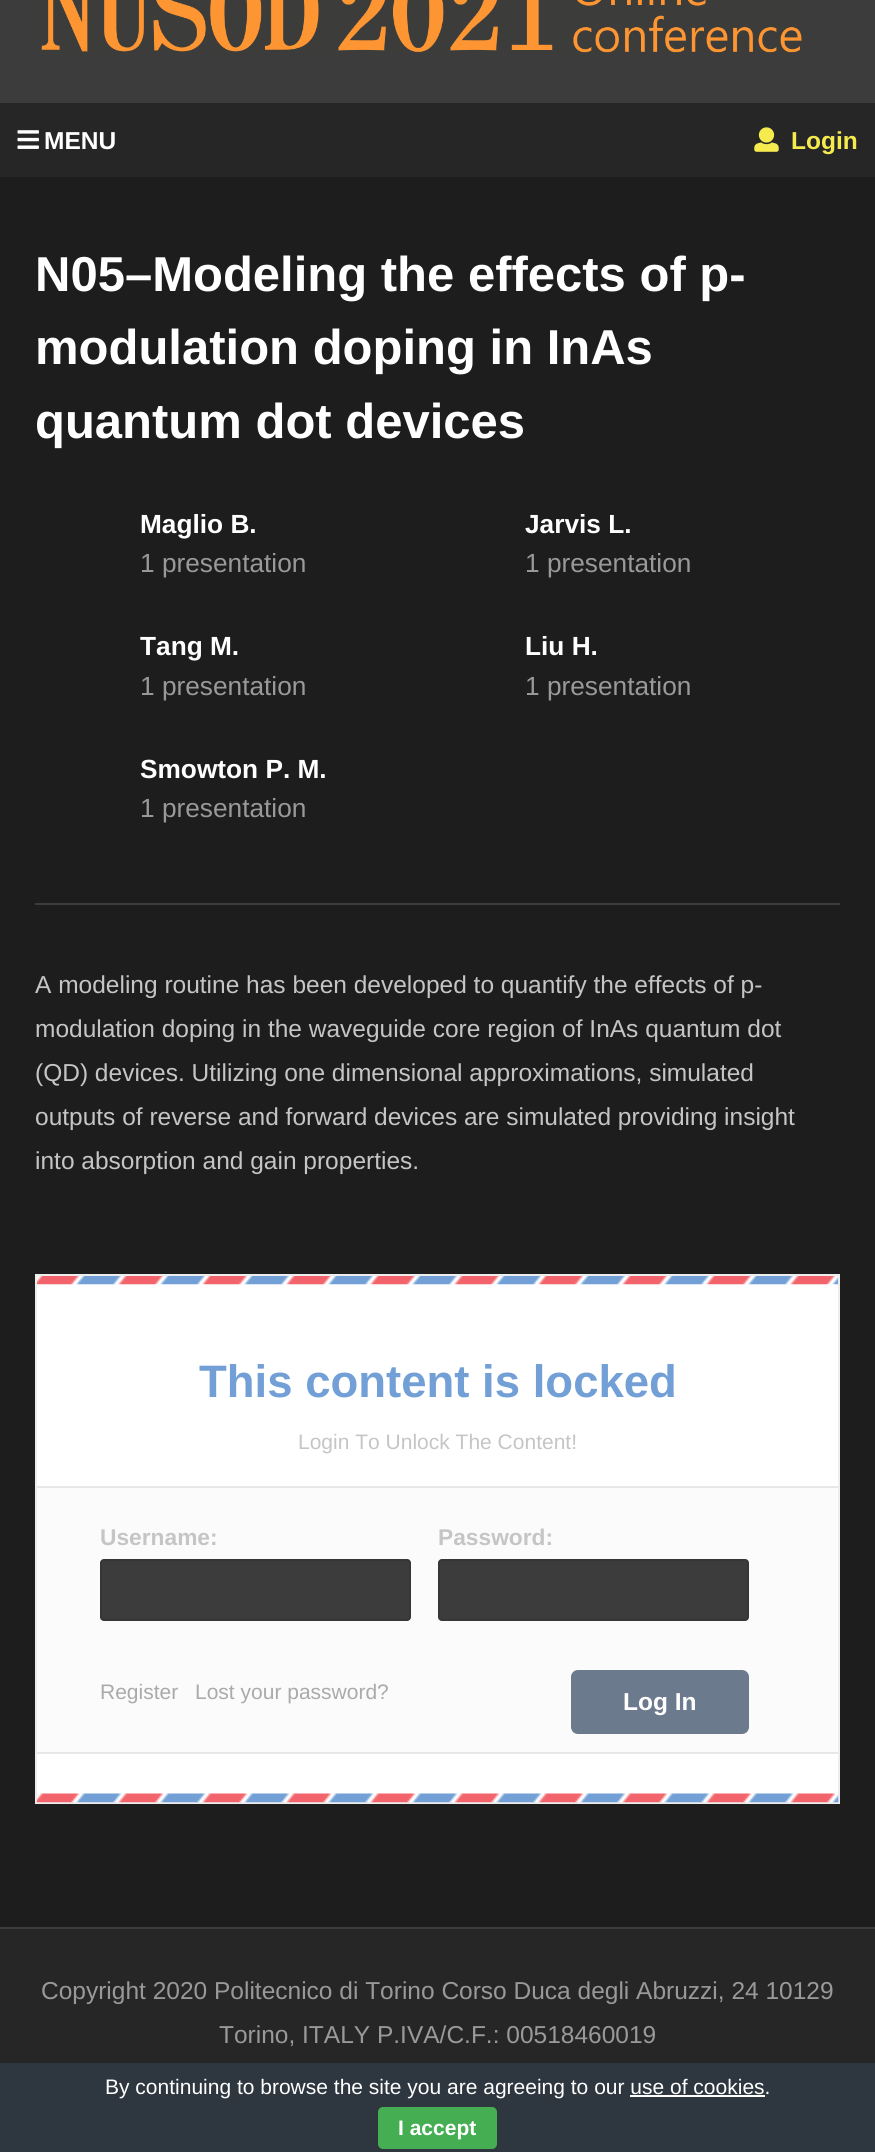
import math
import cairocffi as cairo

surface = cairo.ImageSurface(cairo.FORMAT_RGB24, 875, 2152)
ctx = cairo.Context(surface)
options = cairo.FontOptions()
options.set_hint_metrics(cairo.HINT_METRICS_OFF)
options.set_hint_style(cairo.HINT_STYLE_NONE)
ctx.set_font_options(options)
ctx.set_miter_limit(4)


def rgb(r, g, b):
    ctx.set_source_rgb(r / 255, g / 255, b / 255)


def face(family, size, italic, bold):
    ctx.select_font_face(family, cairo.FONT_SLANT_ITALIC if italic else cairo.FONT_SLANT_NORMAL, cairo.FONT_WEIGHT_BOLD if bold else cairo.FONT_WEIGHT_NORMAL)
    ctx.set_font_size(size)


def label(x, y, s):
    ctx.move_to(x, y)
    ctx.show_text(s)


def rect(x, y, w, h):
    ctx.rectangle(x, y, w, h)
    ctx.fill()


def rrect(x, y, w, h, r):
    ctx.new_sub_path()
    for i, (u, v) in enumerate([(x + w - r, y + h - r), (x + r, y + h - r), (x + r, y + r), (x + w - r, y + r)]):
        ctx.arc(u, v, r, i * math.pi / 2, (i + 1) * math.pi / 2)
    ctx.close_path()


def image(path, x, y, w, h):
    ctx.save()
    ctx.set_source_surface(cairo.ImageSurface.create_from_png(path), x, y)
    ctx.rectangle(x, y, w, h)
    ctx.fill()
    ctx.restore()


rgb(29, 29, 29)
ctx.paint()
rgb(60, 60, 60)
rect(0, 0, 875, 103)
image('image0.png', 41, 0, 761, 53)
rgb(38, 38, 38)
rect(0, 103, 875, 74)
image('image1.png', 17, 130, 22, 19)
face('Liberation Sans', 24.5, 0, 1)
rgb(255, 255, 255)
label(44, 149, 'MENU')
image('image2.png', 754, 127, 25, 25)
rgb(245, 235, 78)
label(791, 149, 'Login')
face('Liberation Sans', 49, 0, 1)
rgb(255, 255, 255)
label(35, 291, 'N05–Modeling the effects of p-')
label(35, 364, 'modulation doping in InAs')
label(35, 438, 'quantum dot devices')
rgb(60, 60, 60)
rect(35, 903, 805, 2)
face('Liberation Sans', 26.25, 0, 1)
rgb(255, 255, 255)
label(140, 533, 'Maglio B.')
face('Liberation Sans', 26.25, 0, 0)
rgb(153, 153, 153)
label(140, 572, '1 presentation')
face('Liberation Sans', 26.25, 0, 1)
rgb(255, 255, 255)
label(525, 533, 'Jarvis L.')
face('Liberation Sans', 26.25, 0, 0)
rgb(153, 153, 153)
label(525, 572, '1 presentation')
face('Liberation Sans', 26.25, 0, 1)
rgb(255, 255, 255)
label(140, 655, 'Tang M.')
face('Liberation Sans', 26.25, 0, 0)
rgb(153, 153, 153)
label(140, 695, '1 presentation')
face('Liberation Sans', 26.25, 0, 1)
rgb(255, 255, 255)
label(525, 655, 'Liu H.')
face('Liberation Sans', 26.25, 0, 0)
rgb(153, 153, 153)
label(525, 695, '1 presentation')
face('Liberation Sans', 26.25, 0, 1)
rgb(255, 255, 255)
label(140, 778, 'Smowton P. M.')
face('Liberation Sans', 26.25, 0, 0)
rgb(153, 153, 153)
label(140, 817, '1 presentation')
face('Liberation Sans', 24.5, 0, 0)
rgb(197, 197, 197)
label(35, 993, 'A modeling routine has been developed to quantify the effects of p-')
label(35, 1037, 'modulation doping in the waveguide core region of InAs quantum dot')
label(35, 1081, '(QD) devices. Utilizing one dimensional approximations, simulated')
label(35, 1125, 'outputs of reverse and forward devices are simulated providing insight')
label(35, 1169, 'into absorption and gain properties.')
rgb(255, 255, 255)
rect(37, 1276, 801, 526)
image('image3.png', 37, 1276, 801, 9)
ctx.rectangle(36, 1275, 803, 528)
rgb(237, 237, 237)
ctx.stroke()
face('Liberation Sans', 45.5, 0, 1)
rgb(113, 159, 214)
label(199, 1397, 'This content is locked')
face('Liberation Sans', 21, 0, 0)
rgb(197, 197, 197)
label(298, 1449, 'Login To Unlock The Content!')
rgb(251, 251, 251)
rect(37, 1488, 801, 264)
rgb(231, 231, 231)
rect(37, 1486, 801, 2)
rect(37, 1752, 801, 2)
face('Liberation Sans', 22.75, 0, 1)
rgb(197, 197, 197)
label(100, 1545, 'Username:')
rgb(60, 60, 60)
rrect(100, 1559, 311, 62, 4)
ctx.fill()
rrect(101, 1560, 309, 60, 3)
ctx.set_source_rgba(0, 0, 0, 0.1)
ctx.stroke()
rgb(197, 197, 197)
label(438, 1545, 'Password:')
rgb(60, 60, 60)
rrect(438, 1559, 311, 62, 4)
ctx.fill()
rrect(439, 1560, 309, 60, 3)
ctx.set_source_rgba(0, 0, 0, 0.1)
ctx.stroke()
face('Liberation Sans', 21, 0, 0)
rgb(170, 170, 170)
label(100, 1699, 'Register')
label(195, 1699, 'Lost your password?')
rgb(108, 122, 141)
rrect(571, 1670, 178, 64, 7)
ctx.fill()
face('Liberation Sans', 24.5, 0, 1)
rgb(255, 255, 255)
label(623, 1710, 'Log In')
image('image4.png', 36, 1793, 803, 10)
rgb(38, 38, 38)
rect(0, 1929, 875, 134)
rgb(60, 60, 60)
rect(0, 1927, 875, 2)
face('Liberation Sans', 24.5, 0, 0)
rgb(153, 153, 153)
label(41, 1999, 'Copyright 2020 Politecnico di Torino Corso Duca degli Abruzzi, 24 10129')
label(219, 2043, 'Torino, ITALY P.IVA/C.F.: 00518460019')
rgb(46, 54, 63)
rect(0, 2063, 875, 89)
face('Liberation Sans', 21, 0, 0)
rgb(255, 255, 255)
label(105, 2094, 'By continuing to browse the site you are agreeing to our use of cookies.')
rect(630, 2095, 135, 2)
rgb(69, 174, 82)
rrect(378, 2107, 119, 42, 5)
ctx.fill()
face('Liberation Sans', 21, 0, 1)
rgb(255, 255, 255)
label(398, 2135, 'I accept')
surface.write_to_png('render.png')
